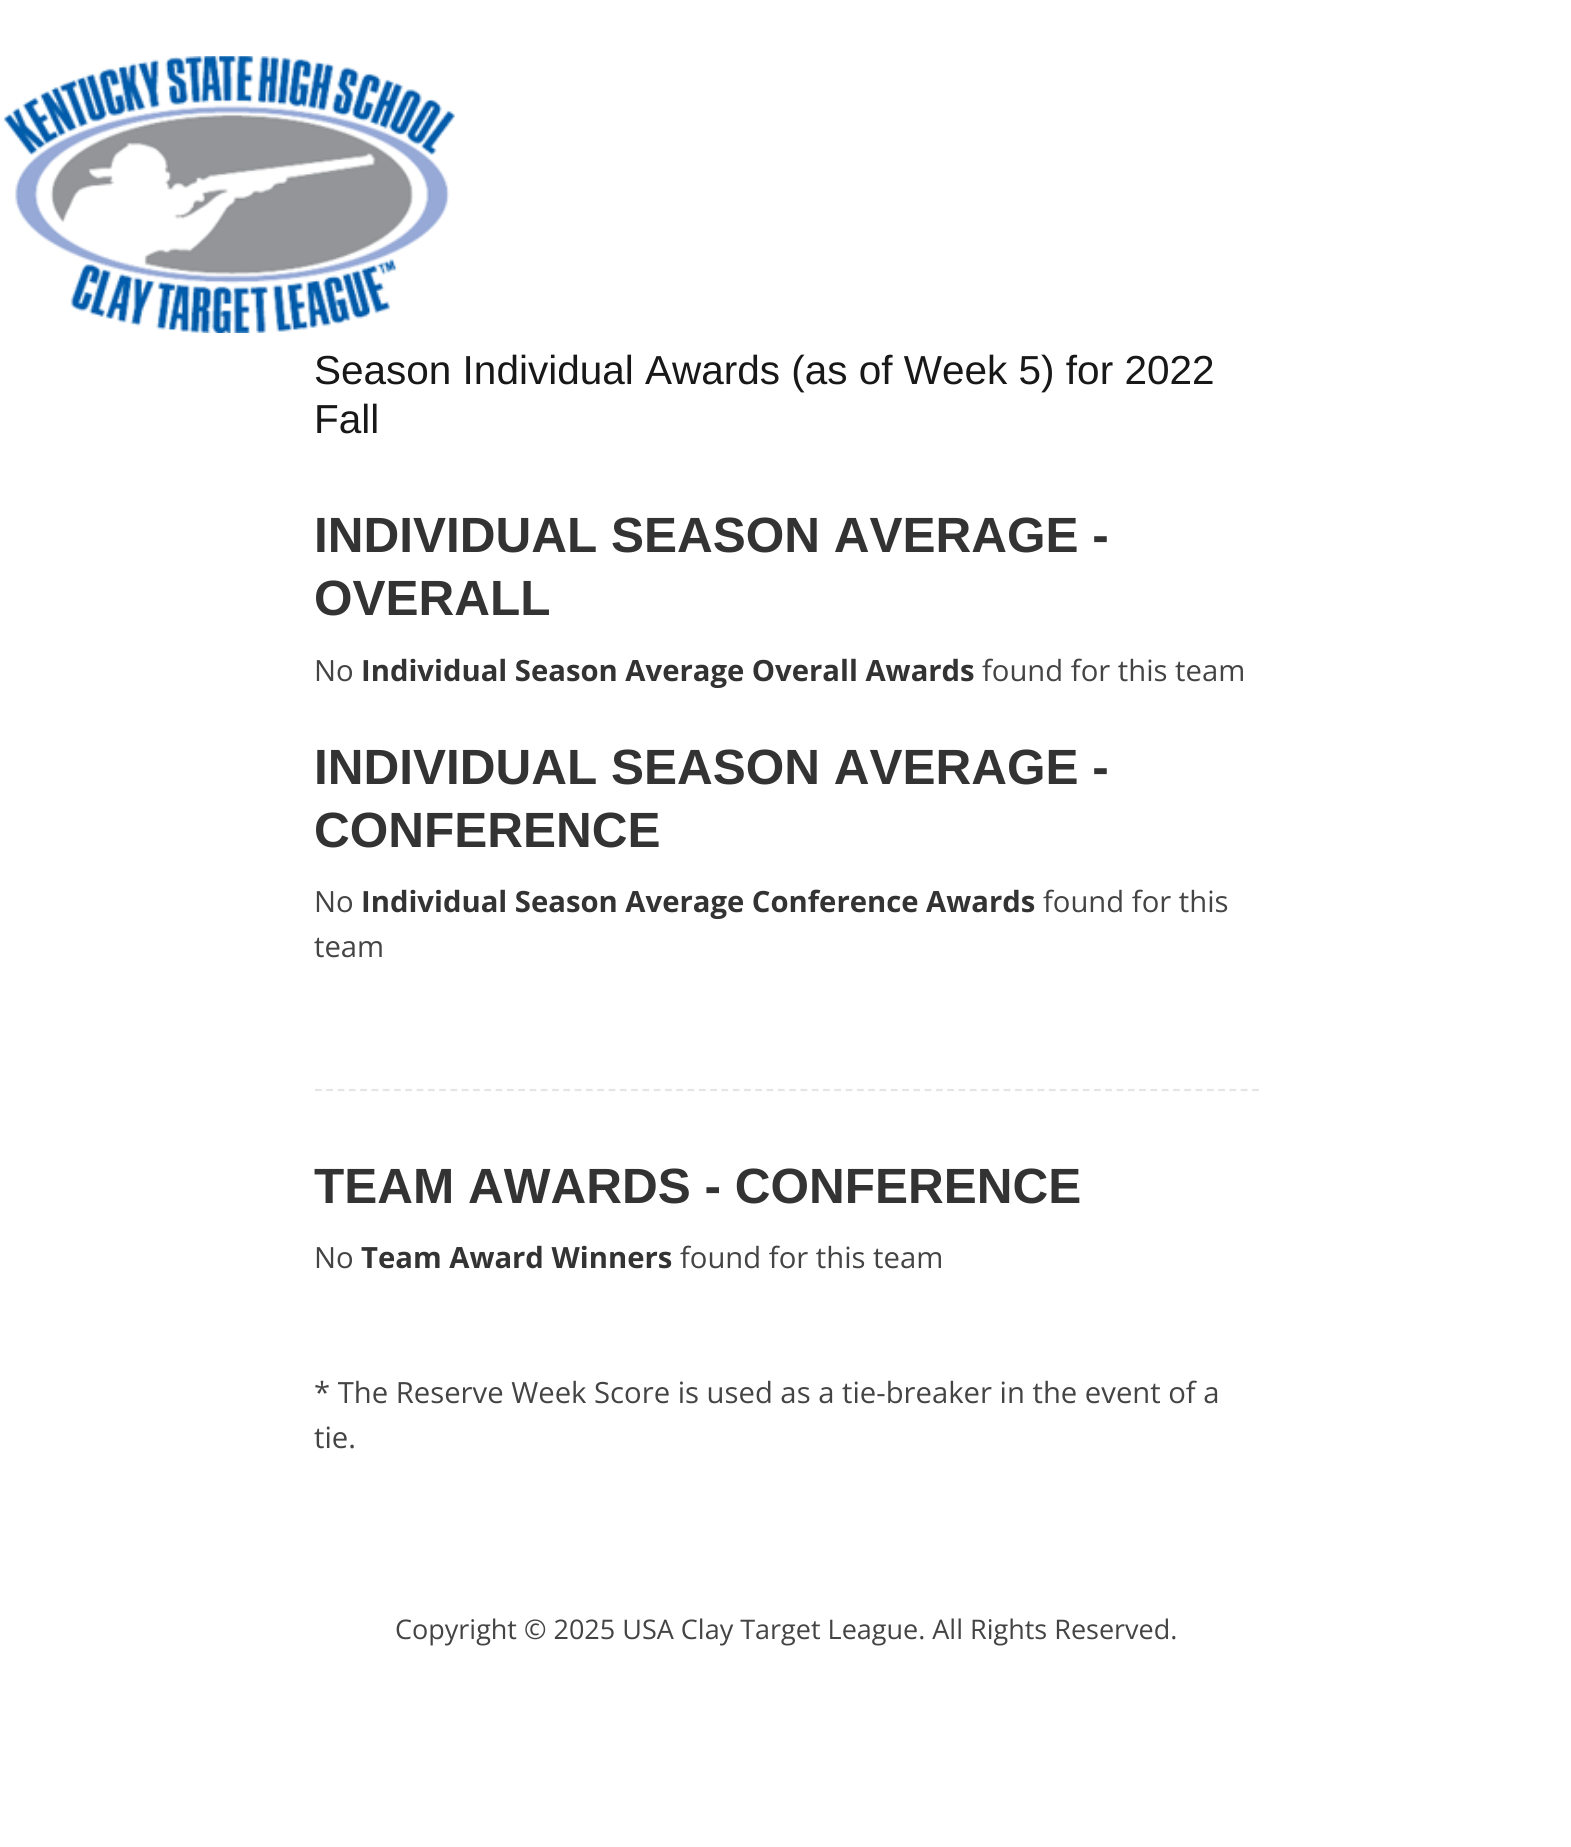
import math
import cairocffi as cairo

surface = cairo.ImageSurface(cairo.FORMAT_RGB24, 1571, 1847)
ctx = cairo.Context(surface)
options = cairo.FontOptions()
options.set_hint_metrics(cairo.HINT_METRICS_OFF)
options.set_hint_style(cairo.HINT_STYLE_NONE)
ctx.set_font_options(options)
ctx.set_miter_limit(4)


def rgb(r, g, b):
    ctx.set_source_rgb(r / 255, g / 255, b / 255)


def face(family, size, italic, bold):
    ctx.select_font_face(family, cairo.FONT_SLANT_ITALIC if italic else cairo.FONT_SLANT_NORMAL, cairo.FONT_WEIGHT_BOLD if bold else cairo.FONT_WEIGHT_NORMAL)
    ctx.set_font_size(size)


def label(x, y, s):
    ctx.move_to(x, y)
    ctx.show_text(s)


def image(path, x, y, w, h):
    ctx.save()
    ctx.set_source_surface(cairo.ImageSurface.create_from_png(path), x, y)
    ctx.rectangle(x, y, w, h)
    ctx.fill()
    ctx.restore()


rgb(255, 255, 255)
ctx.paint()
image('image0.png', 4, 56, 451, 277)
face('Liberation Sans', 40.5, 0, 0)
rgb(24, 24, 24)
label(314, 384, 'Season Individual Awards (as of Week 5) for 2022')
label(314, 433, 'Fall')
face('Liberation Sans', 49.5, 0, 1)
rgb(51, 51, 51)
label(314, 552, 'INDIVIDUAL SEASON AVERAGE -')
label(314, 615, 'OVERALL')
face('Open Sans', 29.25, 0, 0)
rgb(68, 68, 68)
label(314, 681, 'No')
face('Open Sans', 29.25, 0, 1)
rgb(51, 51, 51)
label(361, 681, 'Individual Season Average Overall Awards')
face('Open Sans', 29.25, 0, 0)
rgb(68, 68, 68)
label(982, 681, 'found for this team')
face('Liberation Sans', 49.5, 0, 1)
rgb(51, 51, 51)
label(314, 784, 'INDIVIDUAL SEASON AVERAGE -')
label(314, 847, 'CONFERENCE')
face('Open Sans', 29.25, 0, 0)
rgb(68, 68, 68)
label(314, 912, 'No')
face('Open Sans', 29.25, 0, 1)
rgb(51, 51, 51)
label(361, 912, 'Individual Season Average Conference Awards')
face('Open Sans', 29.25, 0, 0)
rgb(68, 68, 68)
label(1043, 912, 'found for this')
label(314, 957, 'team')
ctx.new_path()
ctx.move_to(315, 1090)
ctx.line_to(1260, 1090)
rgb(229, 229, 229)
ctx.set_line_width(2.2)
ctx.set_dash([6.75, 4.54])
ctx.stroke()
face('Liberation Sans', 49.5, 0, 1)
rgb(51, 51, 51)
label(314, 1203, 'TEAM AWARDS - CONFERENCE')
face('Open Sans', 29.25, 0, 0)
rgb(68, 68, 68)
label(314, 1268, 'No')
face('Open Sans', 29.25, 0, 1)
rgb(51, 51, 51)
label(361, 1268, 'Team Award Winners')
face('Open Sans', 29.25, 0, 0)
rgb(68, 68, 68)
label(680, 1268, 'found for this team')
label(314, 1403, '* The Reserve Week Score is used as a tie-breaker in the event of a')
label(314, 1448, 'tie.')
face('Open Sans', 27, 0, 0)
label(395, 1639, 'Copyright © 2025 USA Clay Target League. All Rights Reserved.')
surface.write_to_png('render.png')
